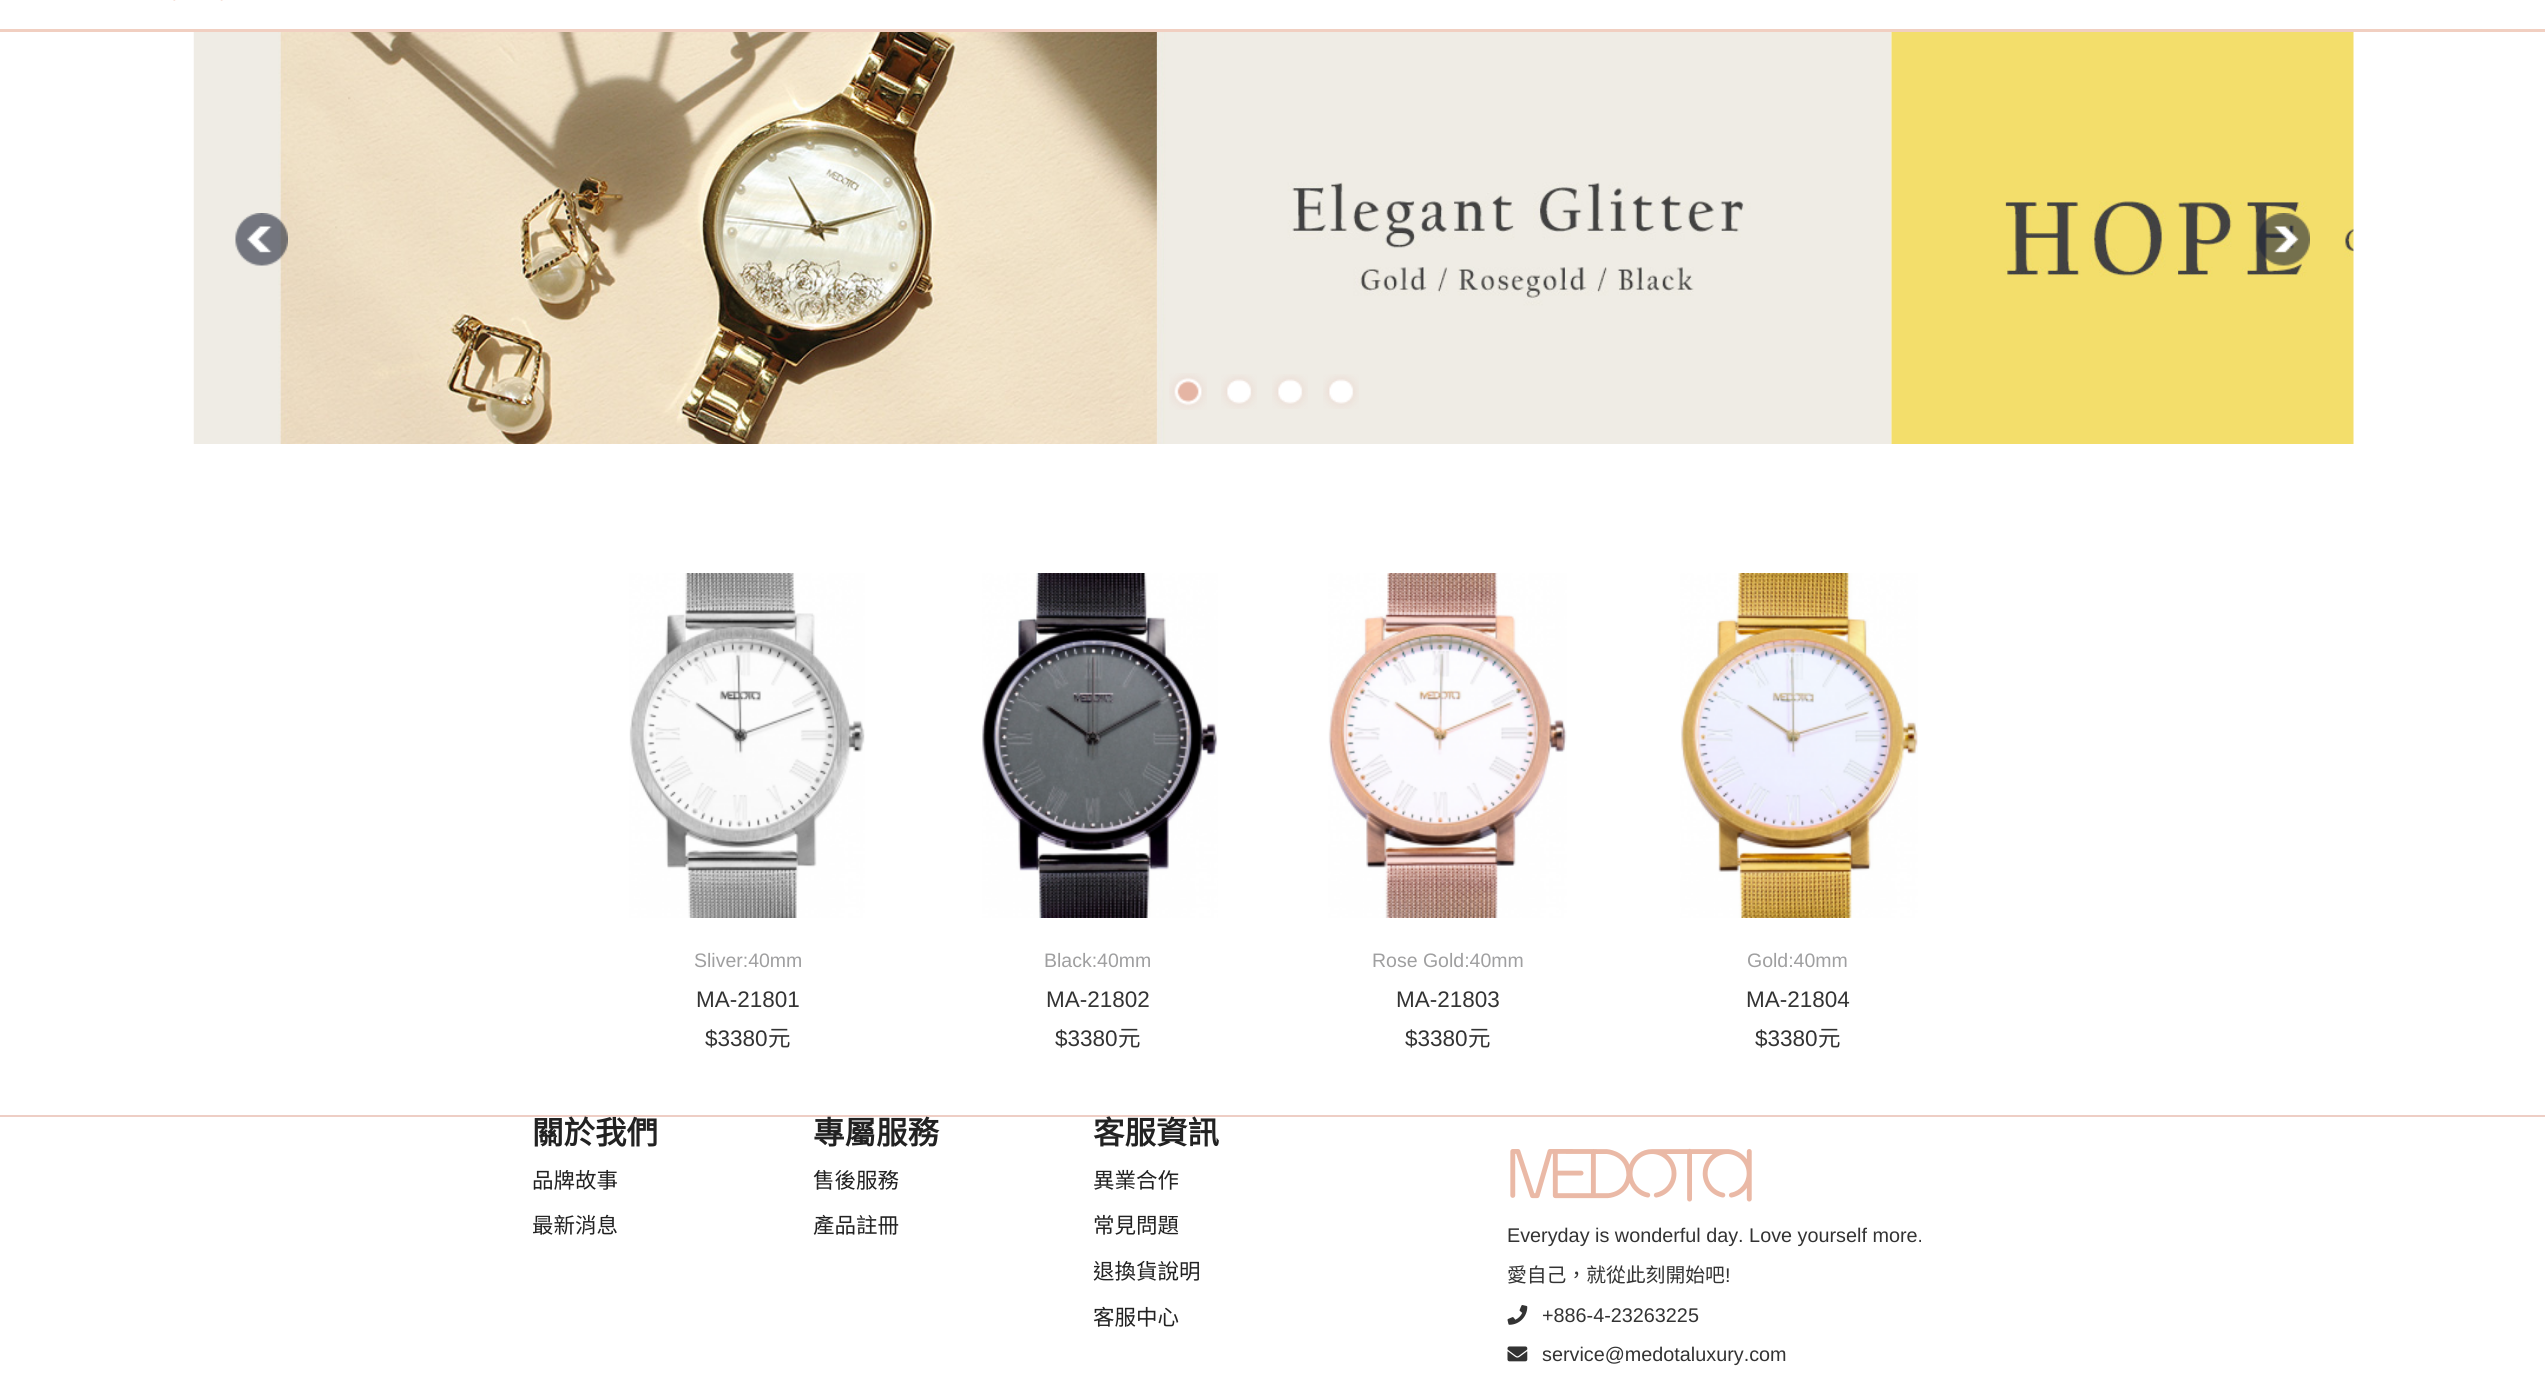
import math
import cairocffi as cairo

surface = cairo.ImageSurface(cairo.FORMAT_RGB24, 2545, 1374)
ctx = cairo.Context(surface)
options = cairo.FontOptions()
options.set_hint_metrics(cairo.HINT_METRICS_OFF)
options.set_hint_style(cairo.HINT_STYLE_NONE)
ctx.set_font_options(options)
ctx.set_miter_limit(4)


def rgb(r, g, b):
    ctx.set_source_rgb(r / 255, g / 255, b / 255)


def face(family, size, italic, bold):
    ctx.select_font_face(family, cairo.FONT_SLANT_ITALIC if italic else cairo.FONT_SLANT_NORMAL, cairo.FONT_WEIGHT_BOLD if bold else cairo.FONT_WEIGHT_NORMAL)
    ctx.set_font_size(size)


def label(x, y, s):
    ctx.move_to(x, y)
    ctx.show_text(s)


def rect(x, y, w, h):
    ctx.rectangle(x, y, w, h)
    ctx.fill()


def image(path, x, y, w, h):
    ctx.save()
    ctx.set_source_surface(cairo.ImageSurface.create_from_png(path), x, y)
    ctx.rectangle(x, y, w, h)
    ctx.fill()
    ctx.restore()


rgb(255, 255, 255)
ctx.paint()
rgb(241, 207, 193)
rect(0, 29, 2545, 3)
image('image0.png', 173, 0, 50, 1)
image('image1.png', 193, 32, 1699, 412)
image('image2.png', 1891, 32, 463, 412)
image('image3.png', 235, 213, 53, 53)
image('image4.png', 2257, 213, 53, 53)
image('image5.png', 1169, 373, 38, 37)
image('image6.png', 1221, 374, 36, 35)
image('image6.png', 1272, 374, 36, 35)
image('image6.png', 1323, 374, 36, 35)
image('image7.png', 629, 573, 236, 345)
face('Liberation Sans', 19.5, 0, 0)
rgb(159, 159, 160)
label(694, 967, 'Sliver:40mm')
face('Liberation Sans', 22.5, 0, 0)
rgb(51, 51, 51)
label(696, 1007, 'MA-21801')
label(705, 1046, '$3380')
face('Noto Sans CJK TC', 22.5, 0, 0)
label(768, 1046, '元')
image('image8.png', 982, 573, 236, 345)
face('Liberation Sans', 19.5, 0, 0)
rgb(159, 159, 160)
label(1044, 967, 'Black:40mm')
face('Liberation Sans', 22.5, 0, 0)
rgb(51, 51, 51)
label(1046, 1007, 'MA-21802')
label(1055, 1046, '$3380')
face('Noto Sans CJK TC', 22.5, 0, 0)
label(1118, 1046, '元')
image('image9.png', 1328, 573, 239, 345)
face('Liberation Sans', 19.5, 0, 0)
rgb(159, 159, 160)
label(1372, 967, 'Rose Gold:40mm')
face('Liberation Sans', 22.5, 0, 0)
rgb(51, 51, 51)
label(1396, 1007, 'MA-21803')
label(1405, 1046, '$3380')
face('Noto Sans CJK TC', 22.5, 0, 0)
label(1468, 1046, '元')
image('image10.png', 1680, 573, 238, 345)
face('Liberation Sans', 19.5, 0, 0)
rgb(159, 159, 160)
label(1747, 967, 'Gold:40mm')
face('Liberation Sans', 22.5, 0, 0)
rgb(51, 51, 51)
label(1746, 1007, 'MA-21804')
label(1755, 1046, '$3380')
face('Noto Sans CJK TC', 22.5, 0, 0)
label(1818, 1046, '元')
rgb(238, 206, 197)
rect(0, 1115, 2545, 2)
face('Noto Sans CJK TC', 31.5, 0, 1)
rgb(34, 34, 34)
label(532, 1144, '關於我們')
face('Noto Sans CJK TC', 21.5, 0, 0)
label(532, 1188, '品牌故事')
label(532, 1233, '最新消息')
face('Noto Sans CJK TC', 31.5, 0, 1)
label(813, 1144, '專屬服務')
face('Noto Sans CJK TC', 21.5, 0, 0)
label(813, 1188, '售後服務')
label(813, 1233, '產品註冊')
face('Noto Sans CJK TC', 31.5, 0, 1)
label(1093, 1144, '客服資訊')
face('Noto Sans CJK TC', 21.5, 0, 0)
label(1093, 1188, '異業合作')
label(1093, 1233, '常見問題')
label(1093, 1279, '退換貨說明')
label(1093, 1325, '客服中心')
image('image11.png', 1510, 1148, 242, 54)
face('Liberation Sans', 19.8, 0, 0)
rgb(51, 51, 51)
label(1507, 1242, 'Everyday is wonderful day. Love yourself more.')
face('Noto Sans CJK TC', 19.8, 0, 0)
label(1507, 1282, '愛自己，就從此刻開始吧')
face('Liberation Sans', 19.8, 0, 0)
label(1725, 1282, '!')
image('image12.png', 1507, 1305, 21, 20)
label(1542, 1322, '+886-4-23263225')
image('image13.png', 1507, 1346, 21, 16)
label(1542, 1361, 'service@medotaluxury.com')
surface.write_to_png('render.png')
